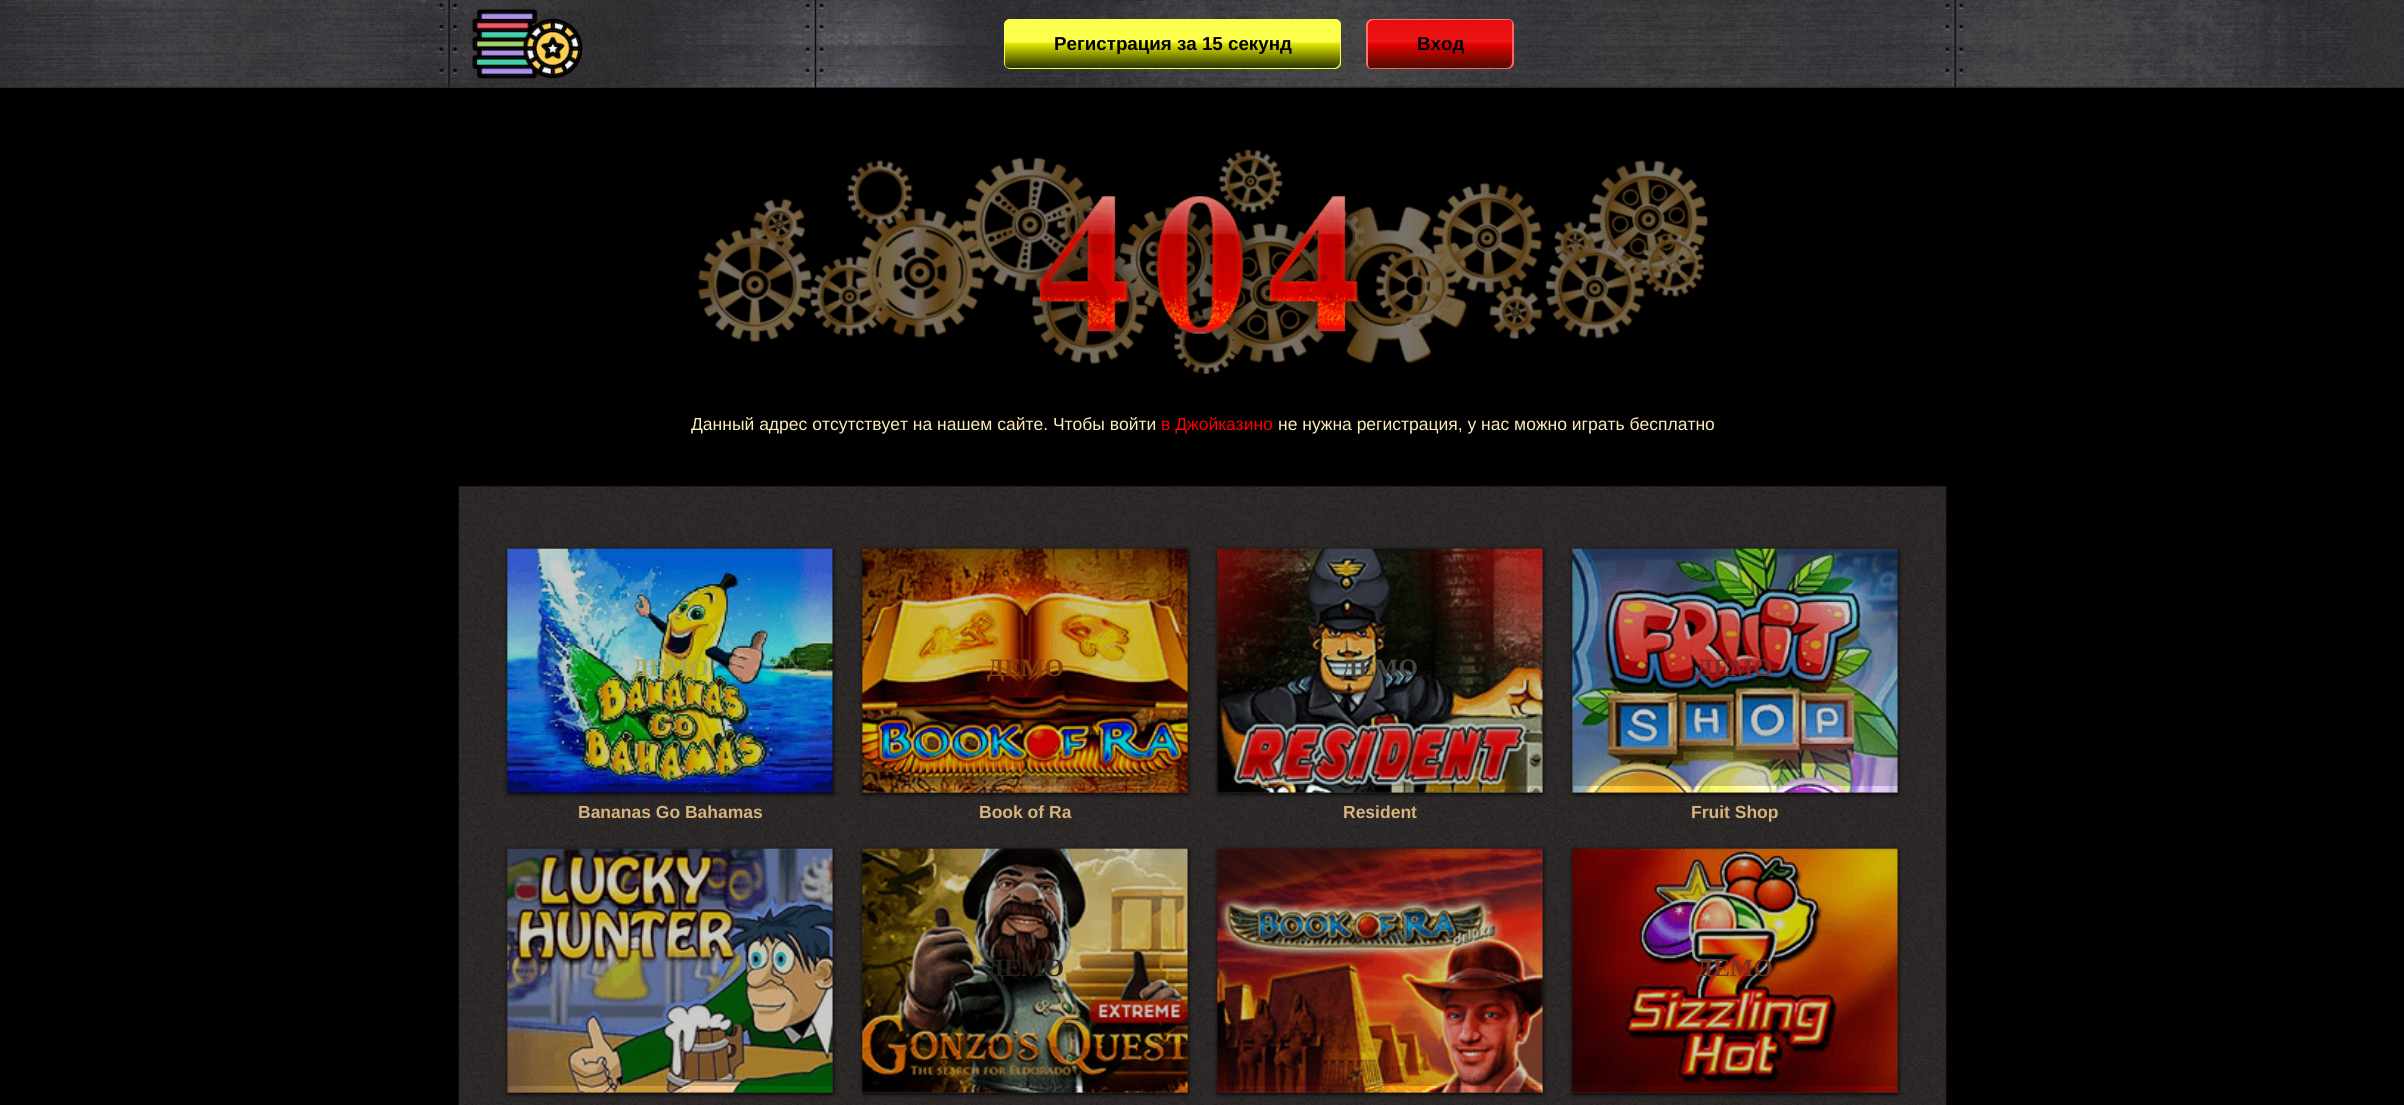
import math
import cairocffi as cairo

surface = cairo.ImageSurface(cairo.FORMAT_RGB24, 2404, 1105)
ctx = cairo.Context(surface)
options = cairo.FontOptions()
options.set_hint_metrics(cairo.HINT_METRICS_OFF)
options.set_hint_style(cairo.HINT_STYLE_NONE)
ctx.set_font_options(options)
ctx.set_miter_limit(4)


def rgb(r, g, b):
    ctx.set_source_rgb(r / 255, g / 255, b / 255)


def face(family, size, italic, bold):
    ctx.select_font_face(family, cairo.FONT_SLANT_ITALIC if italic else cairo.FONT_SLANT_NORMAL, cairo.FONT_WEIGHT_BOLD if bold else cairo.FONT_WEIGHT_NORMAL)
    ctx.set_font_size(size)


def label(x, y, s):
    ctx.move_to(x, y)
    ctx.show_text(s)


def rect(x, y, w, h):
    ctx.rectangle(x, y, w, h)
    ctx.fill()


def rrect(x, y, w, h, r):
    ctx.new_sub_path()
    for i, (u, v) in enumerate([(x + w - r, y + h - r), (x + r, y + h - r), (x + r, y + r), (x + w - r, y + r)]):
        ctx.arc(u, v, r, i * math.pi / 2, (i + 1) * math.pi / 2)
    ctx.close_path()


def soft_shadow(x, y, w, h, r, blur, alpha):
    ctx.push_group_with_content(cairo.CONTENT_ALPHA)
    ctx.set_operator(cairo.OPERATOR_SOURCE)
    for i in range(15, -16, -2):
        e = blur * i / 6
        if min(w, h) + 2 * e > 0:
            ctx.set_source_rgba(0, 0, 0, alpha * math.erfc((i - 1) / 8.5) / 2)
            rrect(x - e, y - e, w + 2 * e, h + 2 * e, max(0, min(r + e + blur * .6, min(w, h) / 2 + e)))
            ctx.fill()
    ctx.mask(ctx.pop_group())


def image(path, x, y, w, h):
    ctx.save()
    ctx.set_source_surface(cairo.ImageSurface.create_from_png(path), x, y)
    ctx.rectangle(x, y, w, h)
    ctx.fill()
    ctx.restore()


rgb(0, 0, 0)
ctx.paint()
image('image0.png', 0, 0, 2404, 88)
image('image1.png', 472, 8, 111, 71)
gradient = cairo.LinearGradient(1173, 19, 1173, 69)
gradient.add_color_stop_rgba(0, 0.988, 1, 0.298, 1)
gradient.add_color_stop_rgba(0.45, 0.988, 1, 0.298, 1)
gradient.add_color_stop_rgba(0.5, 0.882, 0.898, 0, 1)
gradient.add_color_stop_rgba(1, 0.122, 0.176, 0, 1)
ctx.set_source(gradient)
rrect(1004, 19, 337, 50, 6)
ctx.fill()
rgb(252, 255, 76)
ctx.new_path()
ctx.move_to(1006, 67)
ctx.curve_to(1007, 68, 1008, 69, 1010, 69)
ctx.line_to(1335, 69)
ctx.curve_to(1338, 69, 1341, 66, 1341, 63)
ctx.line_to(1341, 25)
ctx.curve_to(1341, 23, 1340, 22, 1339, 21)
ctx.curve_to(1340, 21, 1340, 23, 1340, 24)
ctx.line_to(1340, 61)
ctx.curve_to(1340, 65, 1337, 68, 1334, 68)
ctx.line_to(1009, 68)
ctx.close_path()
ctx.fill()
ctx.new_path()
ctx.move_to(1011, 20)
ctx.line_to(1336, 20)
ctx.line_to(1339, 21)
ctx.curve_to(1338, 20, 1337, 19, 1335, 19)
ctx.line_to(1010, 19)
ctx.curve_to(1007, 19, 1004, 22, 1004, 25)
ctx.line_to(1004, 63)
ctx.curve_to(1004, 65, 1005, 67, 1007, 68)
ctx.curve_to(1006, 67, 1005, 65, 1005, 64)
ctx.line_to(1005, 26)
ctx.curve_to(1005, 23, 1008, 20, 1011, 20)
ctx.close_path()
ctx.fill()
face('Liberation Sans', 18.75, 0, 1)
rgb(0, 0, 0)
label(1054, 50, 'Регистрация за 15 секунд')
gradient = cairo.LinearGradient(1440, 19, 1440, 69)
gradient.add_color_stop_rgba(0, 0.898, 0.051, 0.051, 1)
gradient.add_color_stop_rgba(0.45, 0.929, 0.082, 0.082, 1)
gradient.add_color_stop_rgba(0.5, 0.902, 0, 0, 1)
gradient.add_color_stop_rgba(1, 0.278, 0.055, 0, 1)
ctx.set_source(gradient)
rrect(1366, 19, 148, 50, 6)
ctx.fill()
rgb(253, 100, 100)
ctx.new_path()
ctx.move_to(1367, 66)
ctx.curve_to(1368, 68, 1370, 69, 1372, 69)
ctx.line_to(1508, 69)
ctx.curve_to(1511, 69, 1514, 66, 1514, 63)
ctx.line_to(1514, 25)
ctx.curve_to(1514, 23, 1513, 21, 1511, 20)
ctx.curve_to(1512, 21, 1512, 22, 1512, 24)
ctx.line_to(1512, 61)
ctx.curve_to(1512, 65, 1510, 68, 1506, 68)
ctx.line_to(1371, 68)
ctx.curve_to(1369, 68, 1368, 67, 1367, 66)
ctx.close_path()
ctx.fill()
rgb(255, 114, 114)
ctx.new_path()
ctx.move_to(1374, 20)
ctx.line_to(1510, 20)
ctx.line_to(1513, 22)
ctx.curve_to(1512, 20, 1510, 19, 1508, 19)
ctx.line_to(1372, 19)
ctx.curve_to(1369, 19, 1366, 22, 1366, 25)
ctx.line_to(1366, 63)
ctx.curve_to(1366, 66, 1368, 68, 1370, 69)
ctx.curve_to(1369, 68, 1368, 66, 1368, 64)
ctx.line_to(1368, 26)
ctx.curve_to(1368, 23, 1370, 20, 1374, 20)
ctx.close_path()
ctx.fill()
rgb(0, 0, 0)
label(1417, 50, 'Вход')
image('image2.png', 698, 150, 1010, 224)
face('Liberation Sans', 17.5, 0, 0)
rgb(255, 237, 188)
label(691, 430, 'Данный адрес отсутствует на нашем сайте. Чтобы войти')
rgb(255, 0, 0)
label(1161, 430, 'в Джойказино')
rgb(255, 237, 188)
label(1278, 430, 'не нужна регистрация, у нас можно играть бесплатно')
image('image3.png', 458, 486, 1489, 619)
rgb(0, 0, 0)
soft_shadow(508, 550, 325, 244, 0, 2.5, 1)
image('image4.png', 507, 548, 326, 245)
ctx.set_source_rgba(0, 0, 0, 0.2)
rect(508, 549, 325, 237)
face('Liberation Serif', 25, 0, 1)
rgb(162, 171, 84)
label(632, 676, 'ДЕМО')
face('Liberation Sans', 17.5, 0, 1)
rgb(215, 180, 124)
label(578, 818, 'Bananas Go Bahamas')
ctx.save()
ctx.set_fill_rule(cairo.FILL_RULE_EVEN_ODD)
ctx.new_path()
ctx.move_to(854, 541)
ctx.line_to(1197, 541)
ctx.line_to(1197, 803)
ctx.line_to(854, 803)
ctx.close_path()
ctx.move_to(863, 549)
ctx.line_to(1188, 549)
ctx.line_to(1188, 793)
ctx.line_to(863, 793)
ctx.close_path()
ctx.clip()
rgb(0, 0, 0)
soft_shadow(863, 550, 325, 244, 0, 2.5, 1)
ctx.restore()
image('image5.png', 862, 548, 326, 245)
ctx.set_source_rgba(0, 0, 0, 0.2)
rect(863, 549, 325, 237)
face('Liberation Serif', 25, 0, 1)
rgb(135, 64, 8)
label(987, 676, 'ДЕМО')
face('Liberation Sans', 17.5, 0, 1)
rgb(215, 180, 124)
label(979, 818, 'Book of Ra')
ctx.save()
ctx.set_fill_rule(cairo.FILL_RULE_EVEN_ODD)
ctx.new_path()
ctx.move_to(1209, 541)
ctx.line_to(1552, 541)
ctx.line_to(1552, 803)
ctx.line_to(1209, 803)
ctx.close_path()
ctx.move_to(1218, 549)
ctx.line_to(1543, 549)
ctx.line_to(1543, 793)
ctx.line_to(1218, 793)
ctx.close_path()
ctx.clip()
rgb(0, 0, 0)
soft_shadow(1218, 550, 325, 244, 0, 2.5, 1)
ctx.restore()
image('image6.png', 1217, 548, 326, 245)
ctx.set_source_rgba(0, 0, 0, 0.2)
rect(1218, 549, 325, 237)
face('Liberation Serif', 25, 0, 1)
rgb(69, 69, 59)
label(1341, 676, 'ДЕМО')
face('Liberation Sans', 17.5, 0, 1)
rgb(215, 180, 124)
label(1343, 818, 'Resident')
ctx.save()
ctx.set_fill_rule(cairo.FILL_RULE_EVEN_ODD)
ctx.new_path()
ctx.move_to(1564, 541)
ctx.line_to(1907, 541)
ctx.line_to(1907, 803)
ctx.line_to(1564, 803)
ctx.close_path()
ctx.move_to(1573, 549)
ctx.line_to(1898, 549)
ctx.line_to(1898, 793)
ctx.line_to(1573, 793)
ctx.close_path()
ctx.clip()
rgb(0, 0, 0)
soft_shadow(1573, 550, 325, 244, 0, 2.5, 1)
ctx.restore()
image('image7.png', 1572, 548, 326, 245)
ctx.set_source_rgba(0, 0, 0, 0.2)
rect(1573, 549, 325, 237)
face('Liberation Serif', 25, 0, 1)
rgb(134, 37, 38)
label(1696, 676, 'ДЕМО')
face('Liberation Sans', 17.5, 0, 1)
rgb(215, 180, 124)
label(1691, 818, 'Fruit Shop')
ctx.save()
ctx.set_fill_rule(cairo.FILL_RULE_EVEN_ODD)
ctx.new_path()
ctx.move_to(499, 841)
ctx.line_to(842, 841)
ctx.line_to(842, 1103)
ctx.line_to(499, 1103)
ctx.close_path()
ctx.move_to(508, 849)
ctx.line_to(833, 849)
ctx.line_to(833, 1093)
ctx.line_to(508, 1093)
ctx.close_path()
ctx.clip()
rgb(0, 0, 0)
soft_shadow(508, 850, 325, 244, 0, 2.5, 1)
ctx.restore()
image('image8.png', 507, 848, 326, 245)
ctx.set_source_rgba(0, 0, 0, 0.2)
rect(508, 849, 325, 237)
ctx.save()
ctx.set_fill_rule(cairo.FILL_RULE_EVEN_ODD)
ctx.new_path()
ctx.move_to(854, 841)
ctx.line_to(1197, 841)
ctx.line_to(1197, 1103)
ctx.line_to(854, 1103)
ctx.close_path()
ctx.move_to(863, 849)
ctx.line_to(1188, 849)
ctx.line_to(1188, 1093)
ctx.line_to(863, 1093)
ctx.close_path()
ctx.clip()
rgb(0, 0, 0)
soft_shadow(863, 850, 325, 244, 0, 2.5, 1)
ctx.restore()
image('image9.png', 862, 848, 326, 245)
rect(863, 849, 325, 237)
face('Liberation Serif', 25, 0, 1)
rgb(40, 35, 26)
label(987, 976, 'ДЕМО')
ctx.save()
ctx.set_fill_rule(cairo.FILL_RULE_EVEN_ODD)
ctx.new_path()
ctx.move_to(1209, 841)
ctx.line_to(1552, 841)
ctx.line_to(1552, 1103)
ctx.line_to(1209, 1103)
ctx.close_path()
ctx.move_to(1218, 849)
ctx.line_to(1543, 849)
ctx.line_to(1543, 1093)
ctx.line_to(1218, 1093)
ctx.close_path()
ctx.clip()
rgb(0, 0, 0)
soft_shadow(1218, 850, 325, 244, 0, 2.5, 1)
ctx.restore()
image('image10.png', 1217, 848, 326, 245)
ctx.set_source_rgba(0, 0, 0, 0.2)
rect(1218, 849, 325, 237)
ctx.save()
ctx.set_fill_rule(cairo.FILL_RULE_EVEN_ODD)
ctx.new_path()
ctx.move_to(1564, 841)
ctx.line_to(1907, 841)
ctx.line_to(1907, 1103)
ctx.line_to(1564, 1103)
ctx.close_path()
ctx.move_to(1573, 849)
ctx.line_to(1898, 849)
ctx.line_to(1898, 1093)
ctx.line_to(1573, 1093)
ctx.close_path()
ctx.clip()
rgb(0, 0, 0)
soft_shadow(1573, 850, 325, 244, 0, 2.5, 1)
ctx.restore()
image('image11.png', 1572, 848, 326, 245)
rect(1573, 849, 325, 237)
rgb(122, 50, 27)
label(1696, 976, 'ДЕМО')
surface.write_to_png('render.png')
